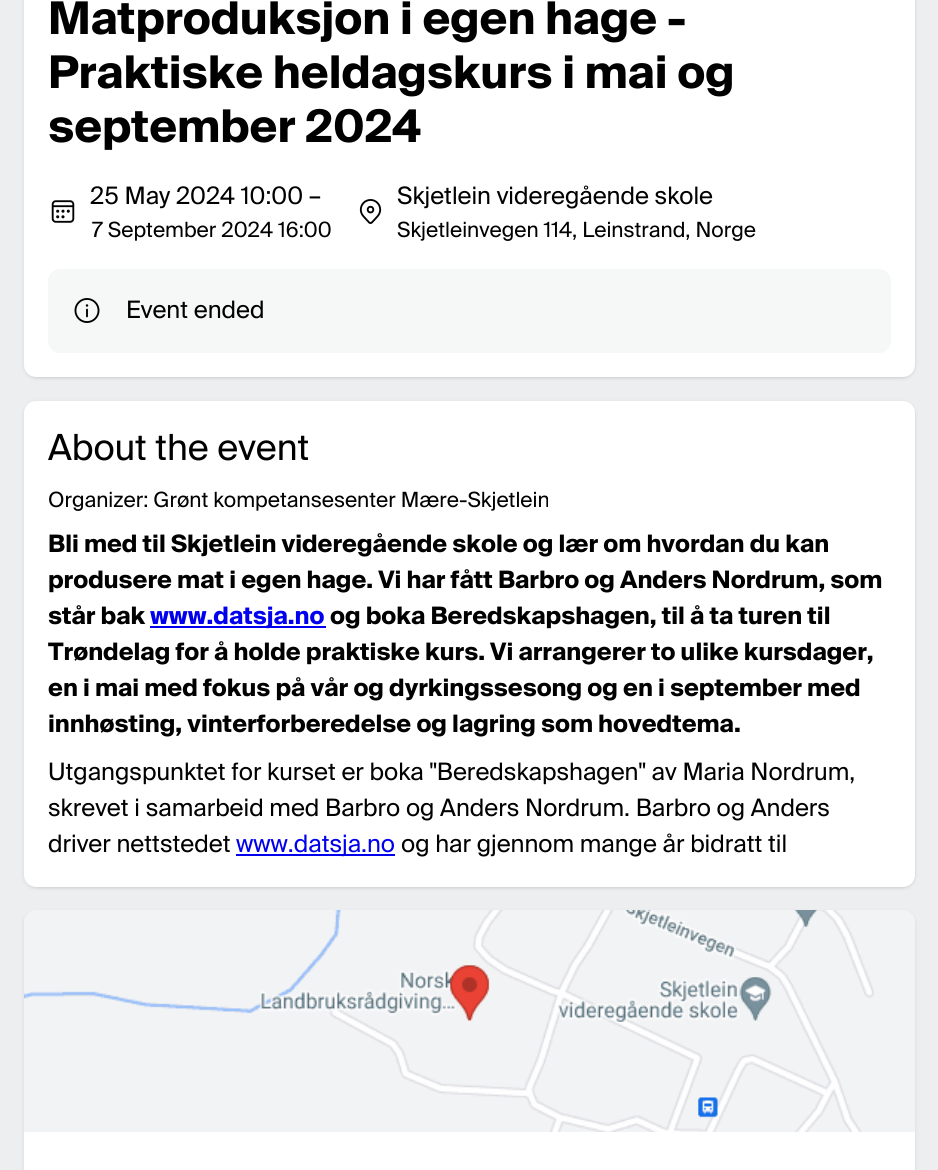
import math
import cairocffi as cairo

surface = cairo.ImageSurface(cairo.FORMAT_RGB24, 938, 1170)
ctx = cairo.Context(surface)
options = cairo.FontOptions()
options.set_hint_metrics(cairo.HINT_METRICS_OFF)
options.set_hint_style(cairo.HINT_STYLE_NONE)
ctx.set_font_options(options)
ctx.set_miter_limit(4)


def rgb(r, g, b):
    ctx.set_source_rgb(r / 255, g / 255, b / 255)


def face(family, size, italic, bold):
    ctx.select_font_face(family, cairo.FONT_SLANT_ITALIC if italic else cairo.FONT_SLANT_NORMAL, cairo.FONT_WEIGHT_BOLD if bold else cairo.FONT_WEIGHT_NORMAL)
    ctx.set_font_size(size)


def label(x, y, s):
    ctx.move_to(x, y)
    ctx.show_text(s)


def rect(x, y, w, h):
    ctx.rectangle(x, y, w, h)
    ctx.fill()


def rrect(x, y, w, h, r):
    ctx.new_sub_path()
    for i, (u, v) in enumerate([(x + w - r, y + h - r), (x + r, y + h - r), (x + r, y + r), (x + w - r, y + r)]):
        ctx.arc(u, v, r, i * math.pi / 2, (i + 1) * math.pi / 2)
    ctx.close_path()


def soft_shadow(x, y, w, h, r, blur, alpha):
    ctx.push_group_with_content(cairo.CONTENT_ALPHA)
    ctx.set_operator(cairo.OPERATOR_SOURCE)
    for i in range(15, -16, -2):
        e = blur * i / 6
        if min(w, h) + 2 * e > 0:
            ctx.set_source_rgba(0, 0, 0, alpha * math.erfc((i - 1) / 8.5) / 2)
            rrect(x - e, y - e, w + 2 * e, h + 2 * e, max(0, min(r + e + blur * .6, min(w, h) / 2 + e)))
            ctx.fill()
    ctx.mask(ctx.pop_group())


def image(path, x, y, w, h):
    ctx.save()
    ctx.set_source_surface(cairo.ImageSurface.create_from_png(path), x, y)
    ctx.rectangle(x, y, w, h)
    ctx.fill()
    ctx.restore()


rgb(237, 238, 239)
ctx.paint()
rgb(0, 0, 0)
soft_shadow(26, -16, 888, 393, 11, 1.5, 0.1)
soft_shadow(24, -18, 891, 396, 12, 2, 0.1)
rgb(255, 255, 255)
rrect(24, -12, 891, 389, 12)
ctx.fill()
face('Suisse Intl', 45, 0, 1)
rgb(0, 0, 0)
label(48, 34, 'Matproduksjon i egen hage -')
label(48, 88, 'Praktiske heldagskurs i mai og')
label(48, 142, 'september 2024')
image('image0.png', 51, 200, 24, 23)
face('Suisse Intl', 24, 0, 0)
label(90, 204, '25 May 2024 10:00 –')
face('Suisse Intl', 21, 0, 0)
label(92, 237, '7 September 2024 16:00')
image('image1.png', 359, 199, 23, 25)
face('Suisse Intl', 24, 0, 0)
label(397, 204, 'Skjetlein videregående skole')
face('Suisse Intl', 21, 0, 0)
label(397, 237, 'Skjetleinvegen 114, Leinstrand, Norge')
rgb(246, 247, 247)
rrect(48, 269, 843, 84, 12)
ctx.fill()
image('image2.png', 74, 298, 26, 25)
face('Suisse Intl', 24, 0, 0)
rgb(0, 0, 0)
label(126, 318, 'Event ended')
rgb(0, 0, 0)
soft_shadow(26, 404, 888, 483, 11, 1.5, 0.1)
soft_shadow(24, 402, 891, 486, 12, 2, 0.1)
rgb(255, 255, 255)
rrect(24, 401, 891, 486, 12)
ctx.fill()
face('Suisse Intl', 36, 0, 0)
rgb(0, 0, 0)
label(48, 460, 'About the event')
face('Suisse Intl', 21, 0, 0)
label(48, 507, 'Organizer: Grønt kompetansesenter Mære-Skjetlein')
face('Suisse Intl', 24, 0, 1)
label(48, 552, 'Bli med til Skjetlein videregående skole og lær om hvordan du kan')
label(48, 588, 'produsere mat i egen hage. Vi har fått Barbro og Anders Nordrum, som')
label(48, 624, 'står bak')
rgb(0, 0, 238)
rect(150, 626, 176, 2)
label(150, 624, 'www.datsja.no')
rgb(0, 0, 0)
label(330, 624, 'og boka Beredskapshagen, til å ta turen til')
label(48, 660, 'Trøndelag for å holde praktiske kurs. Vi arrangerer to ulike kursdager,')
label(48, 696, 'en i mai med fokus på vår og dyrkingssesong og en i september med')
label(48, 732, 'innhøsting, vinterforberedelse og lagring som hovedtema.')
face('Suisse Intl', 24, 0, 0)
label(48, 780, 'Utgangspunktet for kurset er boka "Beredskapshagen" av Maria Nordrum,')
label(48, 816, 'skrevet i samarbeid med Barbro og Anders Nordrum. Barbro og Anders')
label(48, 852, 'driver nettstedet')
rgb(0, 0, 238)
rect(236, 854, 159, 2)
label(236, 852, 'www.datsja.no')
rgb(0, 0, 0)
label(401, 852, 'og har gjennom mange år bidratt til')
rgb(0, 0, 0)
soft_shadow(24, 912, 891, 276, 12, 2, 0.1)
rgb(255, 255, 255)
rrect(24, 911, 891, 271, 12)
ctx.fill()
image('image3.png', 24, 910, 891, 222)
surface.write_to_png('render.png')
